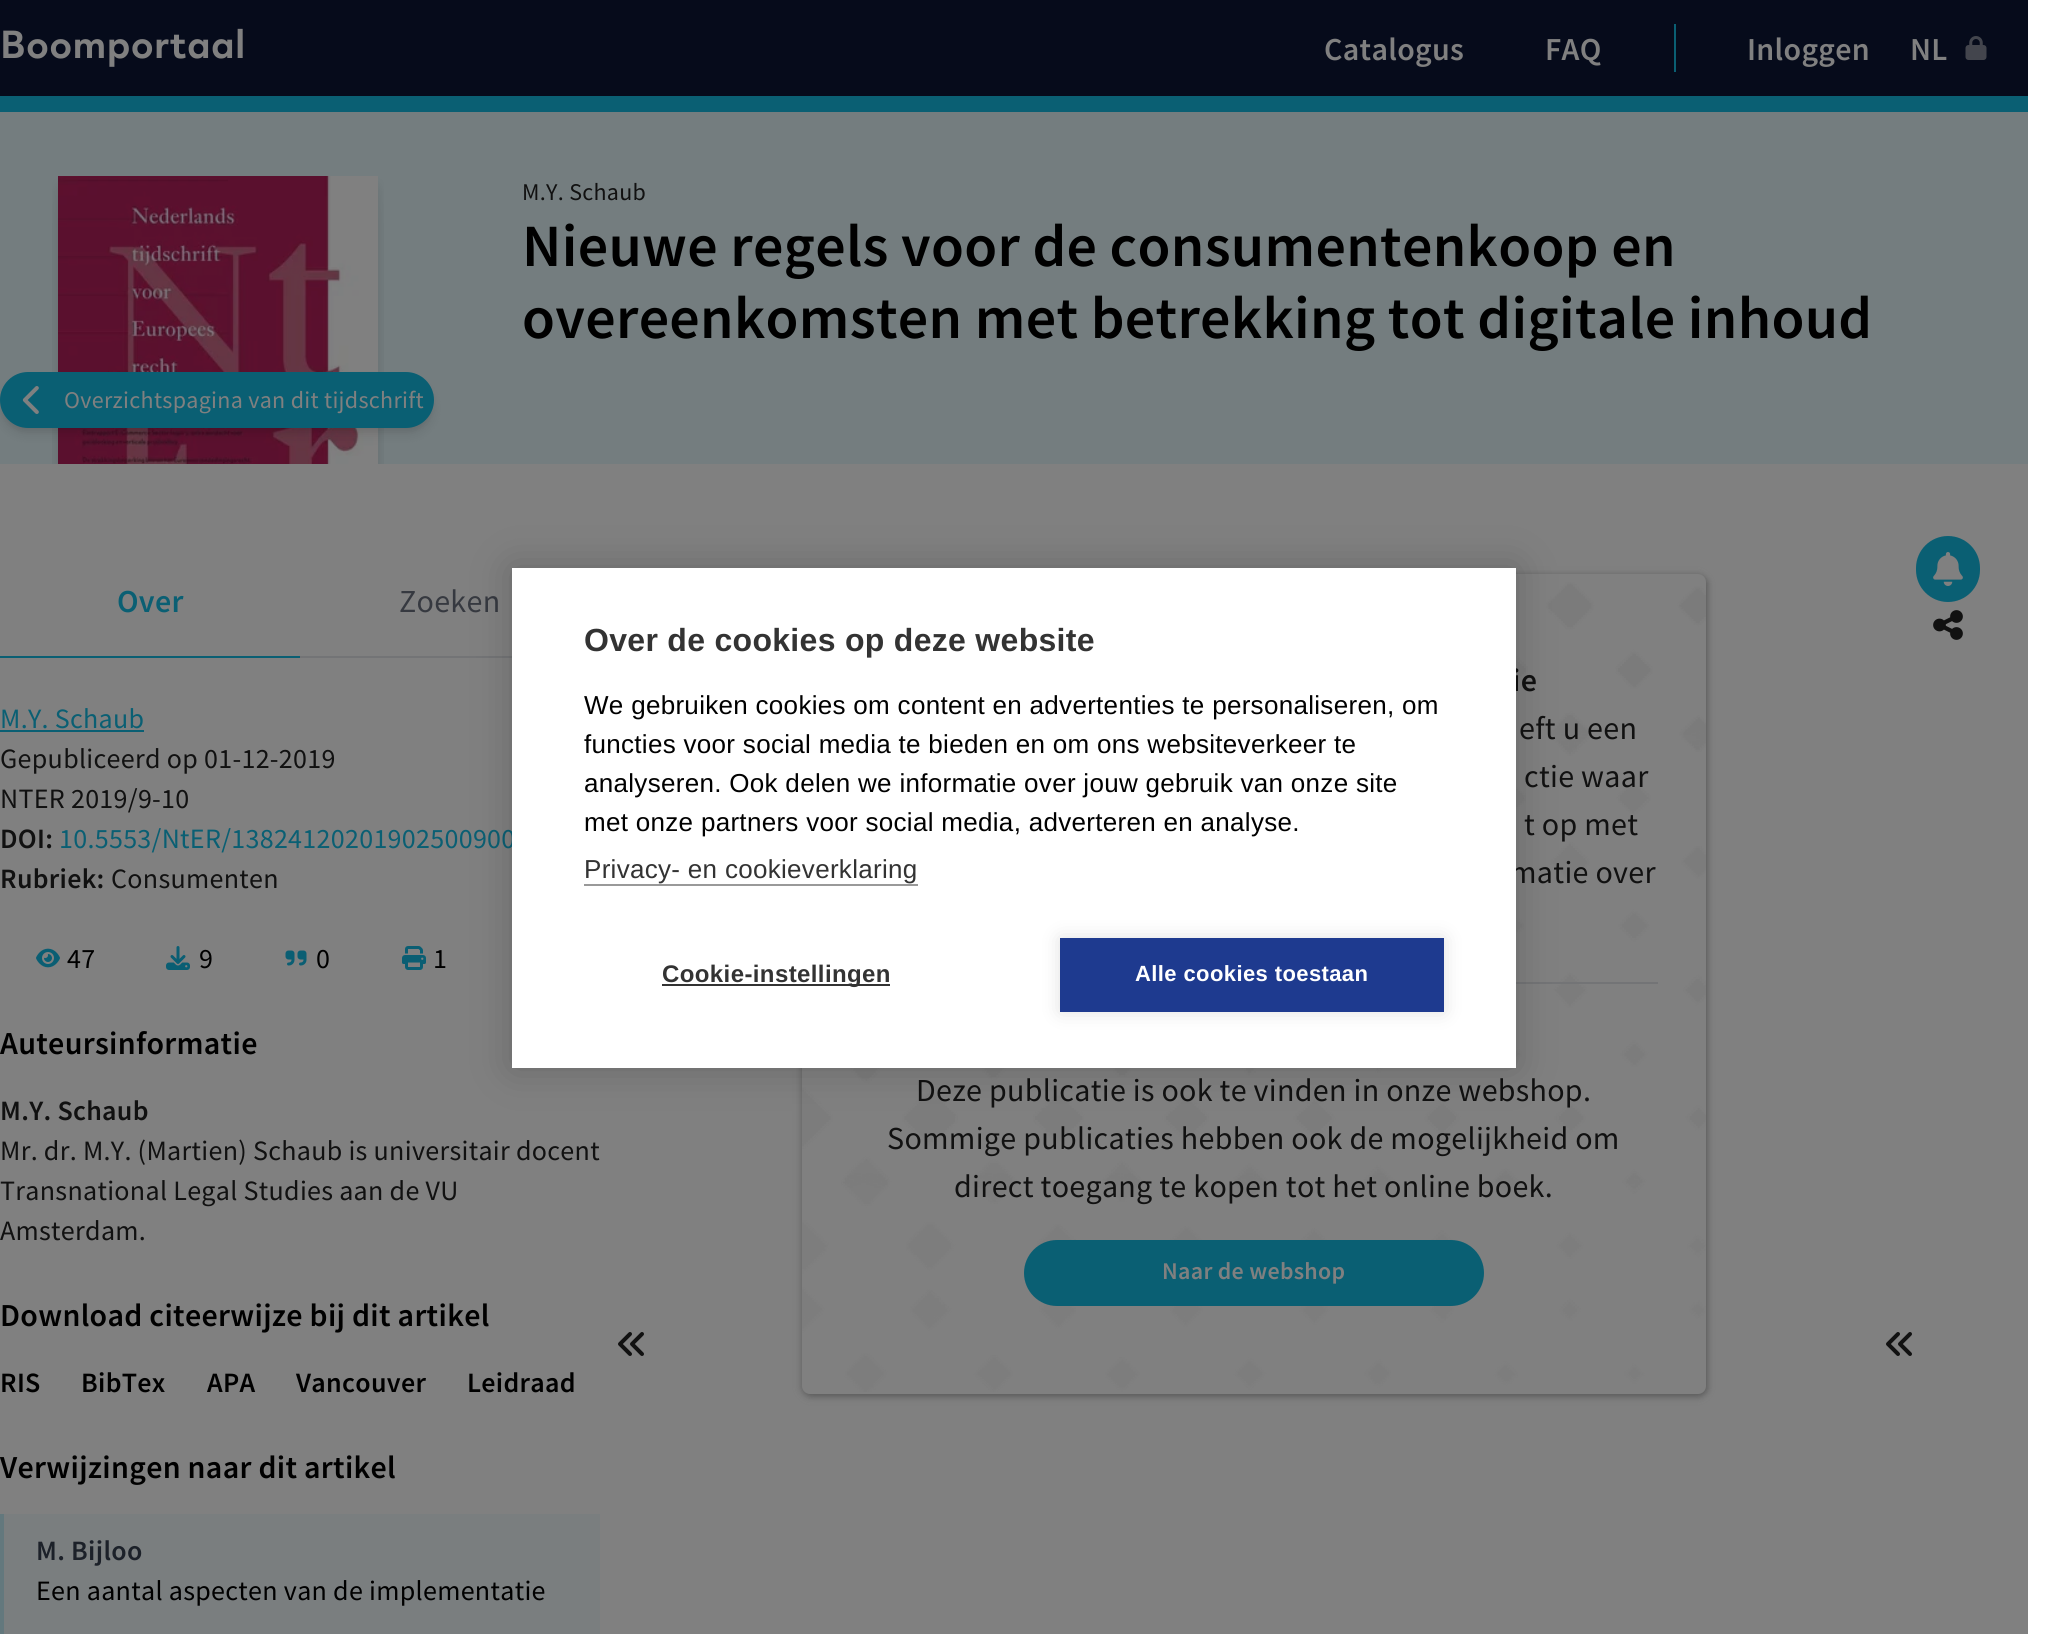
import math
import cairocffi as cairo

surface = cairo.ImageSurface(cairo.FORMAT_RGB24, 2058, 1634)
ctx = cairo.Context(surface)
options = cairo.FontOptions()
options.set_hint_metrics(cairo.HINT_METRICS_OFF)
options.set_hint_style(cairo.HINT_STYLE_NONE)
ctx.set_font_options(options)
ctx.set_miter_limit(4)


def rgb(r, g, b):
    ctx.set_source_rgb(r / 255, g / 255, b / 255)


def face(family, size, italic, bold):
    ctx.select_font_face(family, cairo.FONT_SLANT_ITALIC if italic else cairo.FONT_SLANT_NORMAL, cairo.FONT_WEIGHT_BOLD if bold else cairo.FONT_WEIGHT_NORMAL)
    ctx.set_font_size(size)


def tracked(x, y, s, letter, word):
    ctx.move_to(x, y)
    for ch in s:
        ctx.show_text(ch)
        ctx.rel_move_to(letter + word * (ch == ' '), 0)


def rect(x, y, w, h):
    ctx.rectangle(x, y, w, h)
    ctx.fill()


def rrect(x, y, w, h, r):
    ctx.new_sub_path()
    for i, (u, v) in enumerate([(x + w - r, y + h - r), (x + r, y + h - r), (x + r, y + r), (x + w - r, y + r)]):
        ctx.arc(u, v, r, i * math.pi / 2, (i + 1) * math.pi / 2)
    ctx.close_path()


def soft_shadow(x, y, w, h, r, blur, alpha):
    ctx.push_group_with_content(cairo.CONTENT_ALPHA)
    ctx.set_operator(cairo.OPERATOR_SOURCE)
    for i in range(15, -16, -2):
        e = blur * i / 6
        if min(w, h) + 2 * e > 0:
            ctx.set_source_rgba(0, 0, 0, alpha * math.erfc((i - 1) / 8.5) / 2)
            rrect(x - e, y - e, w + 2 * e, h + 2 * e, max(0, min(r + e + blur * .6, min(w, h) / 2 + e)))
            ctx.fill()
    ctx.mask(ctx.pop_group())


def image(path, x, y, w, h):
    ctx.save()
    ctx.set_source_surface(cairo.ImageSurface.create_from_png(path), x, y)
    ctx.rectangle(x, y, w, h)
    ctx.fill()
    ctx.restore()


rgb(255, 255, 255)
ctx.paint()
rgb(128, 128, 128)
rect(0, 464, 2028, 1170)
rgb(6, 11, 27)
rect(0, 0, 2028, 96)
face('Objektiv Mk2', 36, 0, 1)
rgb(128, 128, 128)
tracked(0, 58, 'Boomportaal', 0.3, 0)
face('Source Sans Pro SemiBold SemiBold', 32, 0, 0)
tracked(1324, 60, 'Catalogus', 0.3, 0)
tracked(1545, 60, 'FAQ', 0.3, 0)
rgb(10, 95, 115)
rect(1674, 24, 2, 48)
rgb(128, 128, 128)
tracked(1747, 60, 'Inloggen', 0.3, 0)
tracked(1910, 60, 'NL', 0.3, 0)
image('image0.png', 1965, 36, 22, 24)
rgb(10, 95, 115)
rect(0, 96, 2028, 16)
rgb(116, 125, 127)
rect(0, 112, 2028, 352)
face('Source Sans Pro', 24, 0, 0)
rgb(17, 17, 17)
tracked(522, 200, 'M.Y. Schaub', 0.3, 0)
face('Source Sans Pro SemiBold SemiBold', 60, 0, 0)
rgb(0, 0, 0)
tracked(522, 266, 'Nieuwe regels voor de consumentenkoop en', 0.3, 0)
tracked(522, 338, 'overeenkomsten met betrekking tot digitale inhoud', 0.3, 0)
image('image1.png', 52, 176, 332, 288)
rgb(0, 0, 0)
soft_shadow(4, 380, 426, 48, 24, 4, 0.1)
soft_shadow(2, 382, 430, 52, 26, 6, 0.1)
rgb(10, 95, 115)
rrect(0, 372, 434, 56, 28)
ctx.fill()
image('image2.png', 22, 386, 17, 28)
face('Source Sans Pro', 24, 0, 0)
rgb(128, 128, 128)
tracked(64, 408, 'Overzichtspagina van dit tijdschrift', 0.3, 0)
rgb(115, 116, 118)
rect(300, 656, 212, 2)
rgb(10, 95, 115)
rect(0, 656, 300, 2)
face('Source Sans Pro SemiBold SemiBold', 32, 0, 0)
tracked(117, 612, 'Over', 0.3, 0)
face('Source Sans Pro', 32, 0, 0)
rgb(54, 57, 64)
tracked(399, 612, 'Zoeken', 0.3, 0)
face('Source Sans Pro', 28, 0, 0)
rgb(10, 95, 115)
tracked(0, 728, 'M.Y. Schaub', 0.3, 0)
rect(0, 730, 144, 2)
rgb(17, 17, 17)
tracked(0, 768, 'Gepubliceerd op 01-12-2019', 0.3, 0)
tracked(0, 808, 'NTER 2019/9-10', 0.3, 0)
face('Source Sans Pro SemiBold SemiBold', 28, 0, 0)
tracked(0, 848, 'DOI:', 0.3, 0)
face('Source Sans Pro', 28, 0, 0)
rgb(10, 95, 115)
tracked(59, 848, '10.5553/NtER/13824120201902500900', 0.3, 0)
face('Source Sans Pro SemiBold SemiBold', 28, 0, 0)
rgb(17, 17, 17)
tracked(0, 888, 'Rubriek:', 0.3, 0)
face('Source Sans Pro', 28, 0, 0)
tracked(111, 888, 'Consumenten', 0.3, 0)
image('image3.png', 36, 948, 24, 20)
rgb(0, 0, 0)
tracked(67, 968, '47', 0.3, 0)
image('image4.png', 166, 946, 24, 24)
tracked(199, 968, '9', 0.3, 0)
image('image5.png', 285, 950, 22, 16)
tracked(316, 968, '0', 0.3, 0)
image('image6.png', 402, 946, 24, 24)
tracked(433, 968, '1', 0.3, 0)
face('Source Sans Pro SemiBold SemiBold', 32, 0, 0)
tracked(0, 1054, 'Auteursinformatie', 0.3, 0)
face('Source Sans Pro SemiBold SemiBold', 28, 0, 0)
rgb(17, 17, 17)
tracked(0, 1120, 'M.Y. Schaub', 0.3, 0)
face('Source Sans Pro', 28, 0, 0)
tracked(0, 1160, 'Mr. dr. M.Y. (Martien) Schaub is universitair docent', 0.3, 0)
tracked(0, 1200, 'Transnational Legal Studies aan de VU', 0.3, 0)
tracked(0, 1240, 'Amsterdam.', 0.3, 0)
face('Source Sans Pro SemiBold SemiBold', 32, 0, 0)
rgb(0, 0, 0)
tracked(0, 1326, 'Download citeerwijze bij dit artikel', 0.3, 0)
face('Source Sans Pro SemiBold SemiBold', 28, 0, 0)
tracked(0, 1392, 'RIS', 0.3, 0)
tracked(81, 1392, 'BibTex', 0.3, 0)
tracked(207, 1392, 'APA', 0.3, 0)
tracked(296, 1392, 'Vancouver', 0.3, 0)
tracked(467, 1392, 'Leidraad', 0.3, 0)
face('Source Sans Pro SemiBold SemiBold', 32, 0, 0)
tracked(0, 1478, 'Verwijzingen naar dit artikel', 0.3, 0)
rgb(122, 126, 127)
rect(4, 1514, 596, 120)
rgb(99, 120, 125)
rect(0, 1514, 4, 120)
face('Source Sans Pro SemiBold SemiBold', 28, 0, 0)
rgb(28, 33, 41)
tracked(36, 1560, 'M. Bijloo', 0.3, 0)
face('Source Sans Pro', 28, 0, 0)
rgb(0, 0, 0)
tracked(36, 1600, 'Een aantal aspecten van de implementatie', 0.3, 0)
image('image7.png', 618, 1332, 26, 24)
rgb(18, 18, 18)
soft_shadow(804, 576, 904, 820, 8, 3, 0.2)
rgb(74, 74, 74)
soft_shadow(802, 576, 904, 820, 8, 4, 0.5)
rgb(128, 128, 128)
rrect(802, 574, 904, 820, 8)
ctx.fill()
image('image8.png', 802, 582, 904, 810)
face('Source Sans Pro SemiBold SemiBold', 32, 0, 0)
rgb(17, 17, 17)
tracked(1512, 691, 'ie', 0.3, 0)
face('Source Sans Pro', 32, 0, 0)
tracked(1519, 739, 'eft u een', 0.3, 0)
tracked(1524, 787, 'ctie waar', 0.3, 0)
tracked(1524, 835, 't op met', 0.3, 0)
tracked(1510, 883, 'matie over', 0.3, 0)
rgb(115, 116, 118)
rect(1516, 982, 142, 2)
rgb(17, 17, 17)
tracked(916, 1101, 'Deze publicatie is ook te vinden in onze webshop.', 0.3, 0)
tracked(887, 1149, 'Sommige publicaties hebben ook de mogelijkheid om', 0.3, 0)
tracked(954, 1197, 'direct toegang te kopen tot het online boek.', 0.3, 0)
rgb(10, 95, 115)
rrect(1024, 1240, 460, 66, 33)
ctx.fill()
face('Source Sans Pro SemiBold SemiBold', 24, 0, 0)
rgb(128, 128, 128)
tracked(1162, 1279, 'Naar de webshop', 0.3, 0)
rgb(10, 95, 115)
rrect(1916, 536, 64, 66, 32)
ctx.fill()
image('image9.png', 1933, 552, 30, 34)
image('image10.png', 1933, 610, 30, 30)
image('image7.png', 1886, 1332, 26, 24)
rgb(0, 0, 0)
soft_shadow(512, 568, 1004, 500, 0, 20, 0.2)
rgb(255, 255, 255)
rect(512, 568, 1004, 500)
face('Liberation Sans', 32, 0, 1)
rgb(51, 51, 51)
tracked(584, 651, 'Over de cookies op deze website', 0.3, 0)
face('Liberation Sans', 26, 0, 0)
rgb(0, 0, 0)
tracked(584, 714, 'We gebruiken cookies om content en advertenties te personaliseren, om', 0.3, 0)
tracked(584, 753, 'functies voor social media te bieden en om ons websiteverkeer te', 0.3, 0)
tracked(584, 792, 'analyseren. Ook delen we informatie over jouw gebruik van onze site', 0.3, 0)
tracked(584, 831, 'met onze partners voor social media, adverteren en analyse.', 0.3, 0)
rgb(51, 51, 51)
tracked(584, 878, 'Privacy- en cookieverklaring', 0.3, 0)
rgb(153, 153, 153)
rect(584, 884, 334, 2)
rgb(51, 51, 51)
rect(662, 984, 228, 2)
face('Liberation Sans', 24, 0, 1)
tracked(662, 982, 'Cookie-instellingen', 0.4, 0)
rgb(0, 0, 0)
soft_shadow(1060, 938, 384, 74, 0, 10, 0.12)
rgb(30, 58, 143)
rect(1060, 938, 384, 74)
face('Liberation Sans', 22, 0, 1)
rgb(255, 255, 255)
tracked(1135, 981, 'Alle cookies toestaan', 0.4, 0)
surface.write_to_png('render.png')
